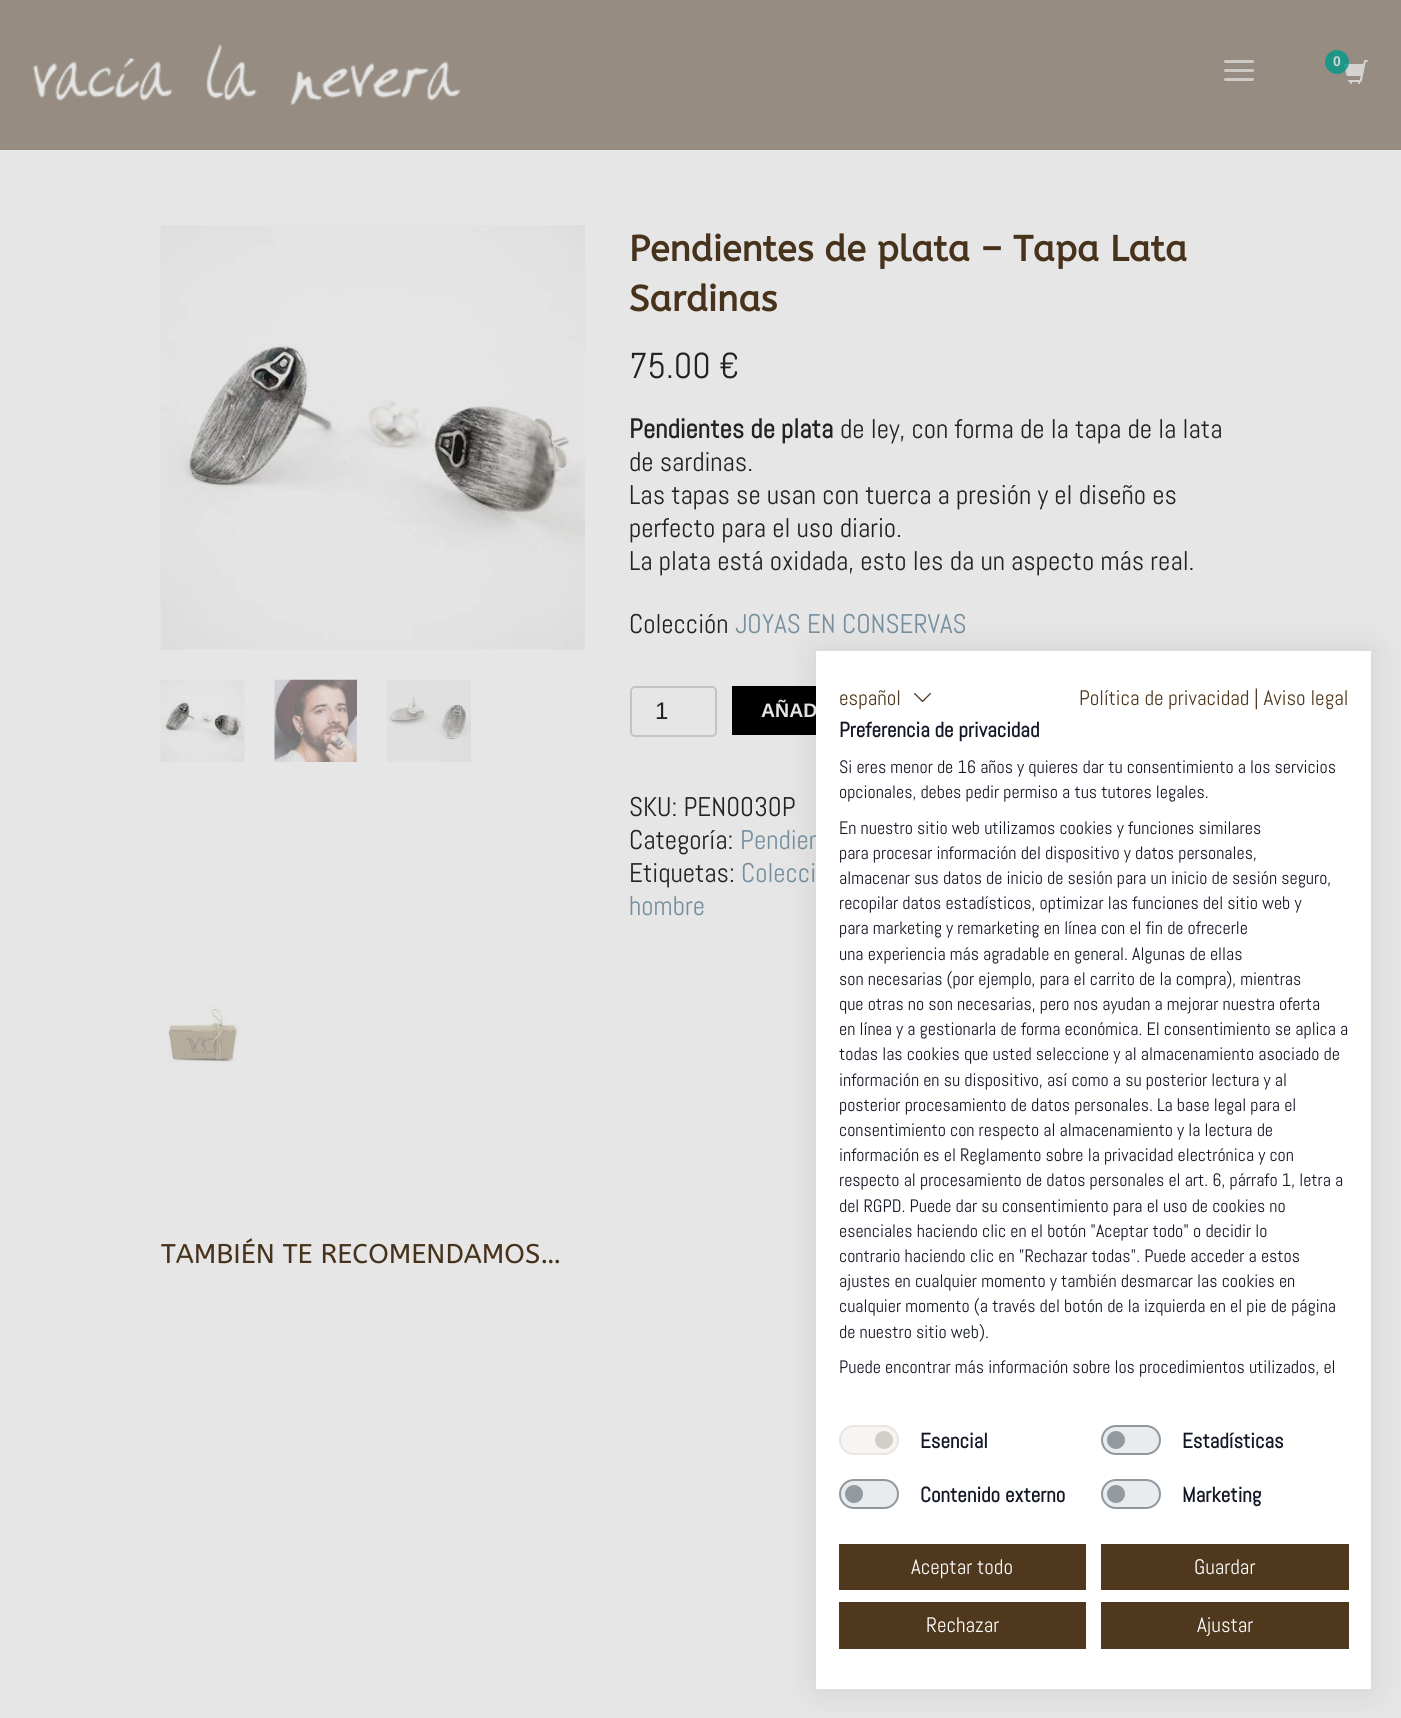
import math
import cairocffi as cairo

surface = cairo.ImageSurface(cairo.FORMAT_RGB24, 1401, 1718)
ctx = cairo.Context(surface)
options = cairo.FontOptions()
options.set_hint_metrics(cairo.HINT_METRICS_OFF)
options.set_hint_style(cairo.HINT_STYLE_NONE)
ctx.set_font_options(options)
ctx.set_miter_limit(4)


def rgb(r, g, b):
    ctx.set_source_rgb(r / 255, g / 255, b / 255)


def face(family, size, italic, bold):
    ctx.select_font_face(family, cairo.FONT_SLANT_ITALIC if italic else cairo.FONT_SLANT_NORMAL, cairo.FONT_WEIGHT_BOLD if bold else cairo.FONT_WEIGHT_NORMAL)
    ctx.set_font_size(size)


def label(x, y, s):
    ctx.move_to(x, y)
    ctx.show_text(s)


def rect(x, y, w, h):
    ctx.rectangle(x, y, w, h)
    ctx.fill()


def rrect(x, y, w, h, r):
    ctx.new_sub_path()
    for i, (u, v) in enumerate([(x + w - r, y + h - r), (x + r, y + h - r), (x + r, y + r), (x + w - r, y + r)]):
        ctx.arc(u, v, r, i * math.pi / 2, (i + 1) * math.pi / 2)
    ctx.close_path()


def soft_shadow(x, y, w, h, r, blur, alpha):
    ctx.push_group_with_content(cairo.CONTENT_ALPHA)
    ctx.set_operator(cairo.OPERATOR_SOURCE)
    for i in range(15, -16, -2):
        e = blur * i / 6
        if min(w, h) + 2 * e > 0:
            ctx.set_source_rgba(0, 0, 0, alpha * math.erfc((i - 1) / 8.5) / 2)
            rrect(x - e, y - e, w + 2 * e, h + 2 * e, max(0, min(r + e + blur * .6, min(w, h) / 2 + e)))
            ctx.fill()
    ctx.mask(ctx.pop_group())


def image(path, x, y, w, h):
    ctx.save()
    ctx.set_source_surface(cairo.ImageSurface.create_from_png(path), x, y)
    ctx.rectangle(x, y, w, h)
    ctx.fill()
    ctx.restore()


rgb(230, 230, 230)
ctx.paint()
rgb(150, 140, 129)
rect(0, 0, 1401, 150)
image('image0.png', 32, 44, 429, 62)
rgb(204, 201, 198)
rrect(1224, 60, 30, 3, 1.5)
ctx.fill()
rrect(1224, 69, 30, 3, 1.5)
ctx.fill()
rrect(1224, 78, 30, 3, 1.5)
ctx.fill()
image('image1.png', 1344, 60, 24, 24)
ctx.set_source_rgba(0, 0.6, 0.529, 0.8)
ctx.arc(1337, 62, 12, 0, 2 * math.pi)
ctx.fill()
face('Liberation Sans', 14, 0, 1)
rgb(213, 212, 210)
label(1333, 66, '0')
image('image2.png', 160, 225, 425, 425)
image('image3.png', 160, 680, 85, 82)
image('image4.png', 274, 679, 83, 83)
image('image5.png', 387, 680, 84, 82)
image('image6.png', 167, 1004, 74, 59)
face('ABeeZee', 36, 0, 1)
rgb(71, 50, 27)
label(629, 261, 'Pendientes de plata – Tapa Lata')
label(629, 311, 'Sardinas')
face('Abel', 36, 0, 0)
rgb(34, 34, 34)
label(629, 378, '75.00 €')
face('Abel', 27, 0, 1)
label(629, 438, 'Pendientes de plata')
face('Abel', 27, 0, 0)
label(840, 438, 'de ley, con forma de la tapa de la lata')
label(629, 471, 'de sardinas.')
label(629, 504, 'Las tapas se usan con tuerca a presión y el diseño es')
label(629, 537, 'perfecto para el uso diario.')
label(629, 570, 'La plata está oxidada, esto les da un aspecto más real.')
label(629, 633, 'Colección')
rgb(118, 143, 158)
label(735, 633, 'JOYAS EN CONSERVAS')
rrect(631, 687, 85, 49, 4)
rgb(195, 195, 195)
ctx.stroke()
face('Liberation Sans', 24, 0, 0)
rgb(34, 34, 34)
label(655, 719, '1')
rgb(0, 0, 0)
rect(732, 686, 84, 49)
face('Liberation Sans', 19.5, 0, 1)
rgb(230, 230, 230)
label(761, 717, 'AÑAD')
face('Abel', 27, 0, 0)
rgb(34, 34, 34)
label(629, 816, 'SKU: PEN0030P')
label(629, 849, 'Categoría:')
rgb(118, 143, 158)
label(740, 849, 'Pendien')
rgb(34, 34, 34)
label(629, 882, 'Etiquetas:')
rgb(118, 143, 158)
label(741, 882, 'Colecci')
label(629, 915, 'hombre')
face('ABeeZee', 27, 0, 0)
rgb(71, 50, 27)
label(161, 1263, 'TAMBIÉN TE RECOMENDAMOS…')
rgb(0, 0, 0)
soft_shadow(816, 651, 555, 1038, 0, 18, 0.1)
rgb(255, 255, 255)
rect(816, 651, 555, 1038)
face('Abel', 21, 0, 0)
rgb(79, 56, 30)
label(839, 705, 'español')
image('image7.png', 914, 693, 17, 9)
label(1079, 705, 'Política de privacidad | Aviso legal')
face('Abel', 21, 0, 1)
rgb(19, 22, 36)
label(839, 737, 'Preferencia de privacidad')
face('Abel', 18, 0, 0)
label(839, 773, 'Si eres menor de 16 años y quieres dar tu consentimiento a los servicios')
label(839, 798, 'opcionales, debes pedir permiso a tus tutores legales.')
label(839, 834, 'En nuestro sitio web utilizamos cookies y funciones similares')
label(839, 859, 'para procesar información del dispositivo y datos personales,')
label(839, 884, 'almacenar sus datos de inicio de sesión para un inicio de sesión seguro,')
label(839, 909, 'recopilar datos estadísticos, optimizar las funciones del sitio web y')
label(839, 934, 'para marketing y remarketing en línea con el fin de ofrecerle')
label(839, 960, 'una experiencia más agradable en general. Algunas de ellas')
label(839, 985, 'son necesarias (por ejemplo, para el carrito de la compra), mientras')
label(839, 1010, 'que otras no son necesarias, pero nos ayudan a mejorar nuestra oferta')
label(839, 1035, 'en línea y a gestionarla de forma económica. El consentimiento se aplica a')
label(839, 1060, 'todas las cookies que usted seleccione y al almacenamiento asociado de')
label(839, 1086, 'información en su dispositivo, así como a su posterior lectura y al')
label(839, 1111, 'posterior procesamiento de datos personales. La base legal para el')
label(839, 1136, 'consentimiento con respecto al almacenamiento y la lectura de')
label(839, 1161, 'información es el Reglamento sobre la privacidad electrónica y con')
label(839, 1186, 'respecto al procesamiento de datos personales el art. 6, párrafo 1, letra a')
label(839, 1212, 'del RGPD. Puede dar su consentimiento para el uso de cookies no')
label(839, 1237, 'esenciales haciendo clic en el botón "Aceptar todo" o decidir lo')
label(839, 1262, 'contrario haciendo clic en "Rechazar todas". Puede acceder a estos')
label(839, 1287, 'ajustes en cualquier momento y también desmarcar las cookies en')
label(839, 1312, 'cualquier momento (a través del botón de la izquierda en el pie de página')
label(839, 1338, 'de nuestro sitio web).')
label(839, 1373, 'Puede encontrar más información sobre los procedimientos utilizados, el')
rgb(246, 245, 244)
rrect(839, 1425, 60, 30, 15)
ctx.fill()
rgb(211, 205, 199)
ctx.arc(884, 1440, 9, 0, 2 * math.pi)
ctx.fill()
rrect(840, 1426, 58, 28, 14)
rgb(233, 230, 227)
ctx.stroke()
face('Abel', 21, 0, 1)
rgb(19, 22, 36)
label(920, 1448, 'Esencial')
rgb(233, 236, 239)
rrect(1101, 1425, 60, 30, 15)
ctx.fill()
rgb(146, 153, 159)
ctx.arc(1116, 1440, 9, 0, 2 * math.pi)
ctx.fill()
rrect(1102, 1426, 58, 28, 14)
ctx.set_source_rgba(0.424, 0.459, 0.49, 0.7)
ctx.stroke()
rgb(19, 22, 36)
label(1182, 1448, 'Estadísticas')
rgb(233, 236, 239)
rrect(839, 1479, 60, 30, 15)
ctx.fill()
rgb(146, 153, 159)
ctx.arc(854, 1494, 9, 0, 2 * math.pi)
ctx.fill()
rrect(840, 1480, 58, 28, 14)
ctx.set_source_rgba(0.424, 0.459, 0.49, 0.7)
ctx.stroke()
rgb(19, 22, 36)
label(920, 1502, 'Contenido externo')
rgb(233, 236, 239)
rrect(1101, 1479, 60, 30, 15)
ctx.fill()
rgb(146, 153, 159)
ctx.arc(1116, 1494, 9, 0, 2 * math.pi)
ctx.fill()
rrect(1102, 1480, 58, 28, 14)
ctx.set_source_rgba(0.424, 0.459, 0.49, 0.7)
ctx.stroke()
rgb(19, 22, 36)
label(1182, 1502, 'Marketing')
rgb(79, 56, 30)
rect(839, 1544, 247, 46)
face('Abel', 21, 0, 0)
rgb(255, 255, 255)
label(911, 1574, 'Aceptar todo')
rgb(79, 56, 30)
rect(1101, 1544, 248, 46)
rgb(255, 255, 255)
label(1194, 1574, 'Guardar')
rgb(79, 56, 30)
rect(839, 1602, 247, 47)
rgb(255, 255, 255)
label(926, 1632, 'Rechazar')
rgb(79, 56, 30)
rect(1101, 1602, 248, 47)
rgb(255, 255, 255)
label(1197, 1632, 'Ajustar')
surface.write_to_png('render.png')
